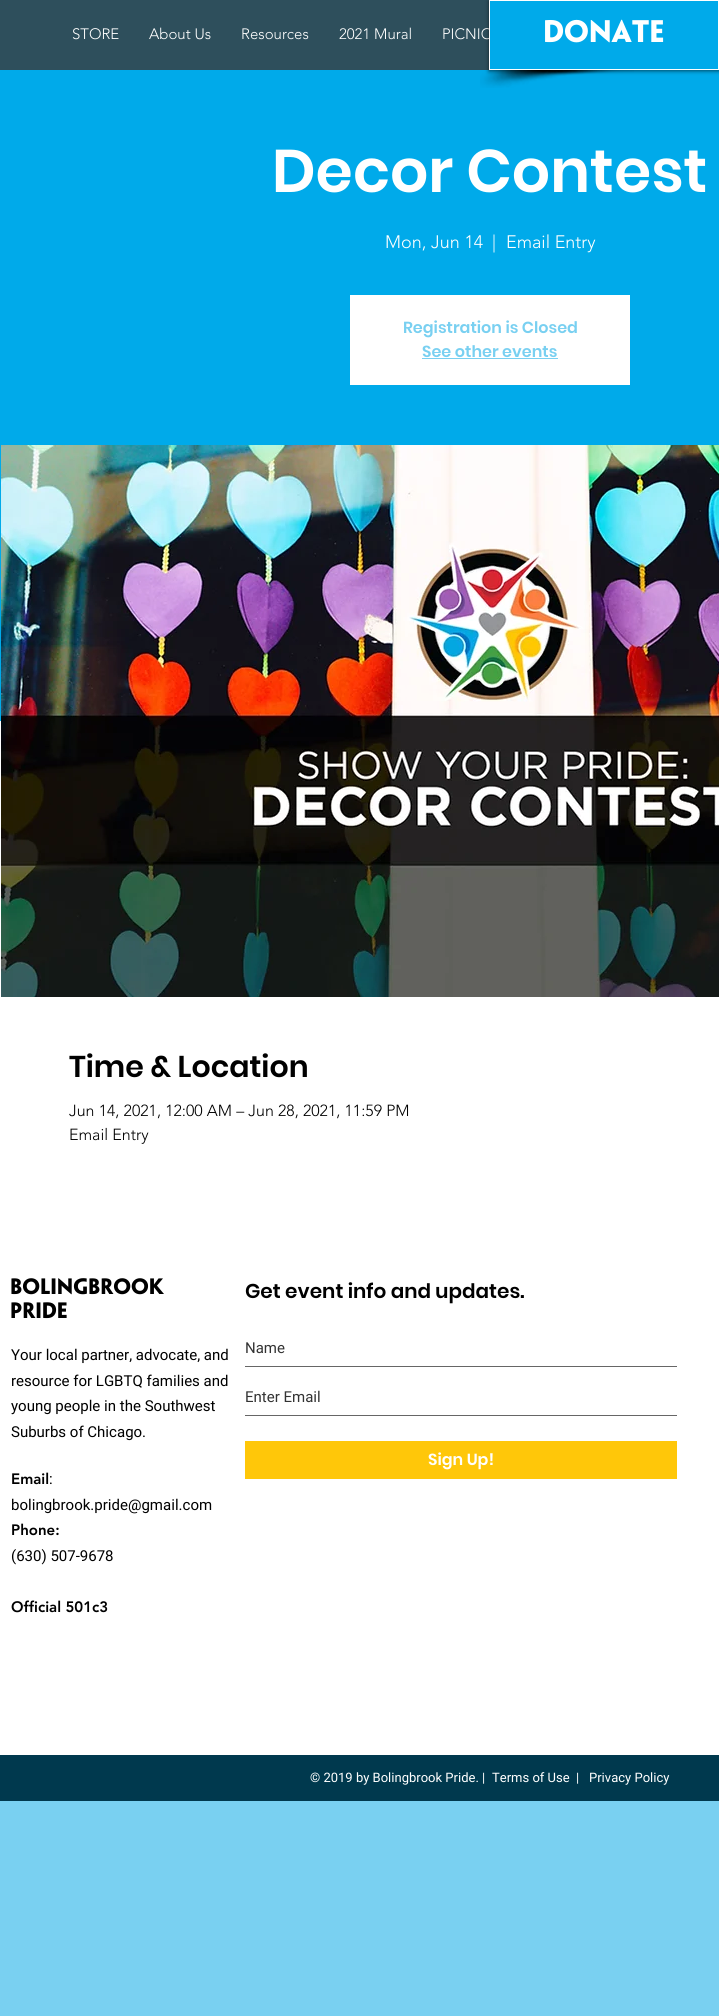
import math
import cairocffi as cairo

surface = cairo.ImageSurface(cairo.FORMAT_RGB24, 719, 2016)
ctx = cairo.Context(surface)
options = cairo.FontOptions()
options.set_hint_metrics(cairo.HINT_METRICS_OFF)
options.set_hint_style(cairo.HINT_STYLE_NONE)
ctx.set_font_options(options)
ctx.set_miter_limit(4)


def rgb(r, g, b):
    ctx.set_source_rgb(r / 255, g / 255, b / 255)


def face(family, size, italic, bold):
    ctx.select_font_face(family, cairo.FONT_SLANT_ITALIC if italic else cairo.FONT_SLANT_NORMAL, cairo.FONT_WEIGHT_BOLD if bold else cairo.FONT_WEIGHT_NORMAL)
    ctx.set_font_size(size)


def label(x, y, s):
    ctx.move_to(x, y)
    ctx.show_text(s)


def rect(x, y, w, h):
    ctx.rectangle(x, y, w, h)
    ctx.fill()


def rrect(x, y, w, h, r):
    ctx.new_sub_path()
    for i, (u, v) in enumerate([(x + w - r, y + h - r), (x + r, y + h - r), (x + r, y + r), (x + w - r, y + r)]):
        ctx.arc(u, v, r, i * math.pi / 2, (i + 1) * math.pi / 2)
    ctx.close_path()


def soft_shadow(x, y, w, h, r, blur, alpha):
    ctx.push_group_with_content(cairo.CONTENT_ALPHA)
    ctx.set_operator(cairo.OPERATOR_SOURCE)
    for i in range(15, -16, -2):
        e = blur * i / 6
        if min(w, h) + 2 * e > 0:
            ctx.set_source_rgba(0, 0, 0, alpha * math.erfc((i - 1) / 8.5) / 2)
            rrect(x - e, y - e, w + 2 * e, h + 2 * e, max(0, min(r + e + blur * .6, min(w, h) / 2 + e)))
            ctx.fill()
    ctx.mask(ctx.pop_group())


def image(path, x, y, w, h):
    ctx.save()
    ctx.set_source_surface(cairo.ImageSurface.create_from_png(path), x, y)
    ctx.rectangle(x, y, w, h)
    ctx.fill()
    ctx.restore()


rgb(121, 208, 241)
ctx.paint()
rgb(46, 79, 92)
rect(0, 0, 489, 70)
face('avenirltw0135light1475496 Light', 15, 0, 0)
rgb(255, 255, 255)
label(72, 39, 'STORE')
label(149, 39, 'About Us')
label(241, 39, 'Resources')
label(339, 39, '2021 Mural')
label(442, 39, 'PICNIC')
rgb(0, 170, 234)
rect(0, 70, 719, 651)
image('image0.png', 480, 70, 154, 18)
rgb(0, 0, 0)
soft_shadow(489, 1, 230, 70, 0, 2, 0.6)
rgb(0, 170, 234)
ctx.rectangle(489.5, 0.5, 229, 69)
ctx.fill_preserve()
rgb(255, 255, 255)
ctx.set_line_width(1)
ctx.stroke()
face('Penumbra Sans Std', 28, 0, 1)
label(543, 42, 'Donate')
face('Poppins SemiBold', 60, 0, 0)
label(272, 192, 'Decor Contest')
face('avenirltw0135light1475496 Light', 18, 0, 0)
label(385, 248, 'Mon, Jun 14')
label(492, 248, '|')
label(506, 248, 'Email Entry')
rect(350, 295, 280, 90)
face('Poppins SemiBold', 16, 0, 0)
rgb(121, 208, 241)
label(403, 333, 'Registration is Closed')
label(422, 357, 'See other events')
rect(422, 358, 136, 1)
rgb(255, 255, 255)
rect(0, 721, 719, 1034)
image('image1.png', 1, 445, 718, 552)
face('Poppins SemiBold', 30, 0, 0)
rgb(0, 0, 0)
label(69, 1077, 'Time & Location')
face('avenirltw0135light1475496 Light', 16, 0, 0)
label(69, 1116, 'Jun 14, 2021, 12:00 AM – Jun 28, 2021, 11:59 PM')
label(69, 1140, 'Email Entry')
face('Penumbra Sans Std', 20, 0, 1)
label(10, 1294, 'Bolingbrook')
label(10, 1318, 'Pride')
face('Heebo', 15, 0, 0)
label(11, 1360, 'Your local partner, advocate, and')
label(11, 1386, 'resource for LGBTQ families and')
label(11, 1411, 'young people in the Southwest')
label(11, 1437, 'Suburbs of Chicago.')
face('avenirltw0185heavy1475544 Black', 15, 0, 0)
label(11, 1484, 'Email')
face('Heebo', 15, 0, 0)
label(49, 1484, ':')
label(11, 1510, 'bolingbrook.pride@gmail.com')
face('avenirltw0185heavy1475544 Black', 15, 0, 0)
label(11, 1535, 'Phone:')
face('Heebo', 15, 0, 0)
label(11, 1561, '(630) 507-9678')
face('avenirltw0185heavy1475544 Black', 15, 0, 0)
label(11, 1612, 'Official 501c3')
face('Poppins SemiBold', 20, 0, 0)
label(245, 1298, 'Get event info and updates.')
rgb(102, 102, 102)
rect(245, 1366, 432, 1)
face('Heebo', 15, 0, 0)
rgb(51, 51, 51)
label(245, 1353, 'Name')
rgb(102, 102, 102)
rect(245, 1415, 432, 1)
rgb(51, 51, 51)
label(245, 1402, 'Enter Email')
rgb(255, 199, 9)
rect(245, 1441, 432, 38)
face('Poppins SemiBold', 16, 0, 0)
rgb(255, 255, 255)
label(428, 1465, 'Sign Up!')
rgb(0, 57, 78)
rect(0, 1755, 719, 46)
face('Heebo', 13, 0, 0)
rgb(255, 255, 255)
label(310, 1782, '© 2019 by Bolingbrook Pride. |')
label(492, 1782, 'Terms of Use')
label(576, 1782, '|')
label(589, 1782, 'Privacy Policy')
surface.write_to_png('render.png')
